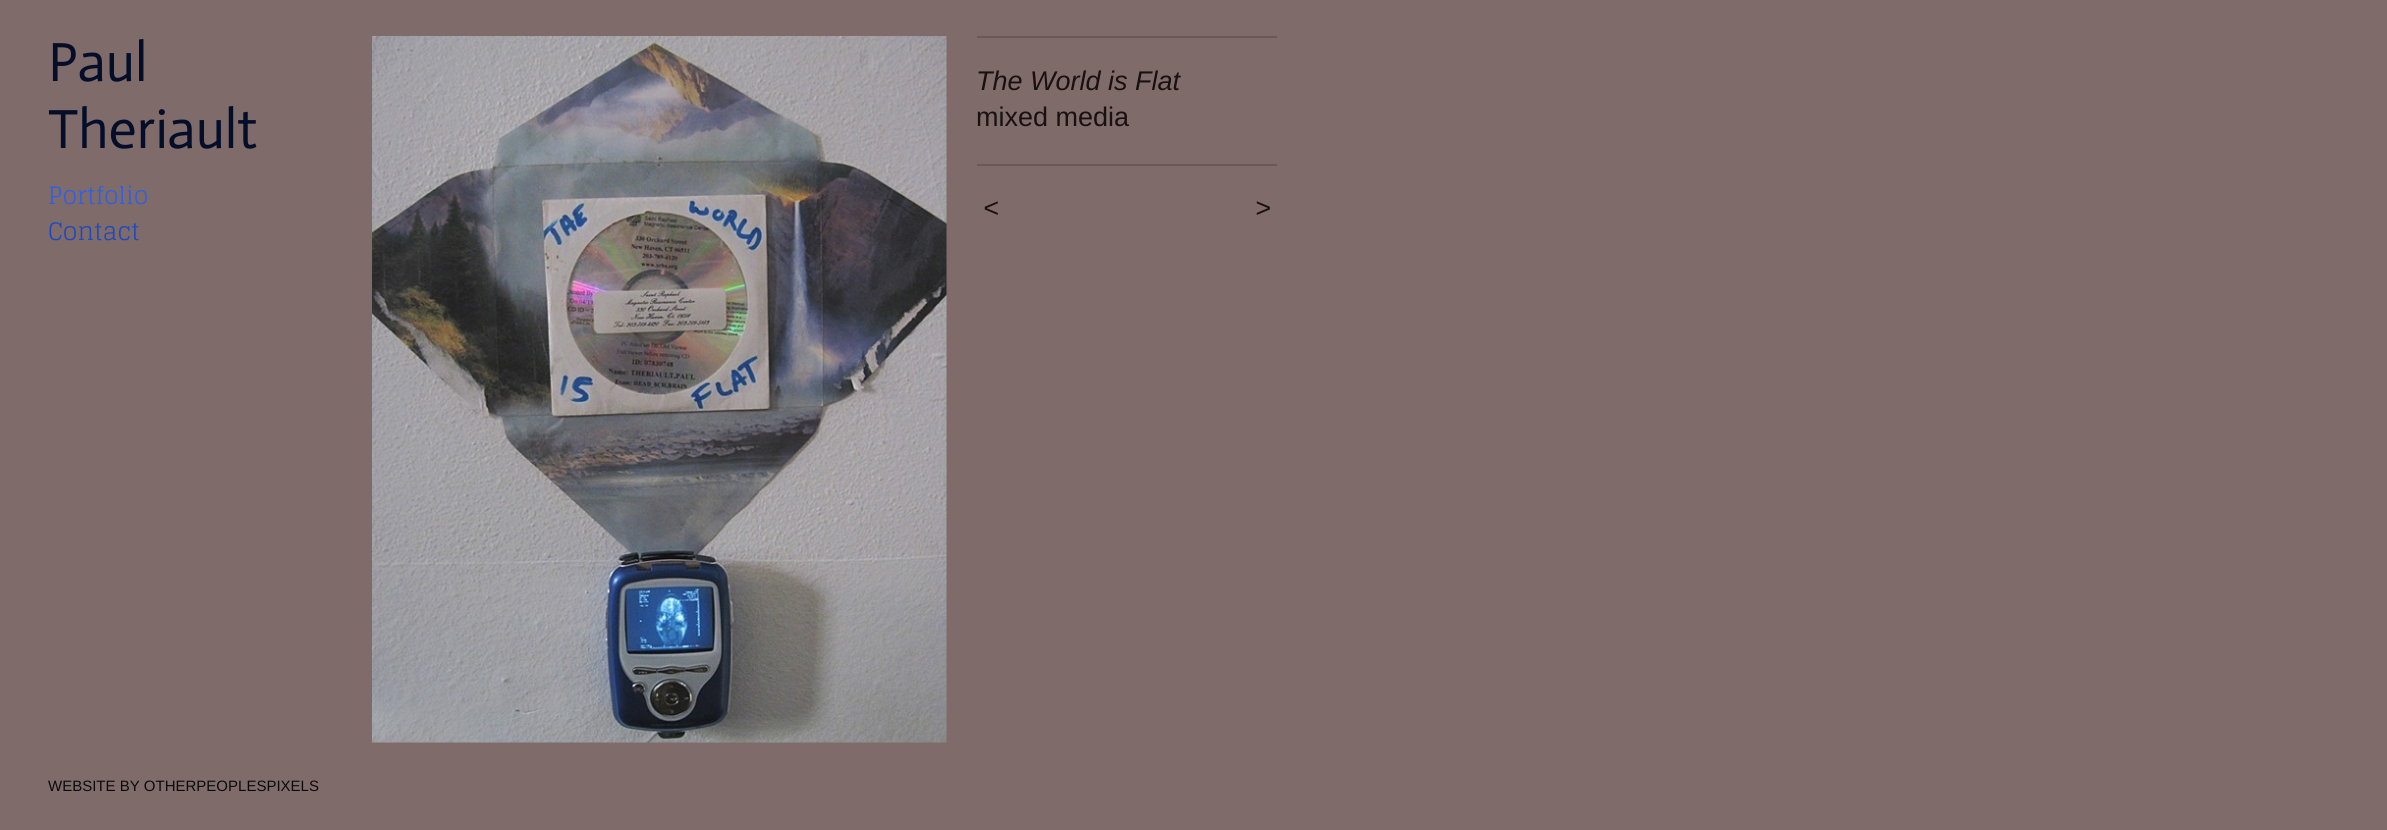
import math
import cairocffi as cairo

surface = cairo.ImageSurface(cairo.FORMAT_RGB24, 2387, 830)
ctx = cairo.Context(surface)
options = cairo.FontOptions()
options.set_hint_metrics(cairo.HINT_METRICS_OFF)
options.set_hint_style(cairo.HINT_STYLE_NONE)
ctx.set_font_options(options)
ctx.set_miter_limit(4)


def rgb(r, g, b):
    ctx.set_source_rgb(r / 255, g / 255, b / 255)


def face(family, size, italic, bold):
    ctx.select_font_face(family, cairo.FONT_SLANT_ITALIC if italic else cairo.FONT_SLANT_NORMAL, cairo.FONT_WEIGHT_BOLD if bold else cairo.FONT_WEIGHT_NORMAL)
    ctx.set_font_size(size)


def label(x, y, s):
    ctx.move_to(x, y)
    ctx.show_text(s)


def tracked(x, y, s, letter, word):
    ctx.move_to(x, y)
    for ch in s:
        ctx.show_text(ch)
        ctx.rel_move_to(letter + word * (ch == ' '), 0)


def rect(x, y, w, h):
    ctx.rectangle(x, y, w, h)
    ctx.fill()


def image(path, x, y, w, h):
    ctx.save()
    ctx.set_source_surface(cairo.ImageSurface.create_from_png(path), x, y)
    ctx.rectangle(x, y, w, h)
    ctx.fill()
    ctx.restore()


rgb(128, 107, 107)
ctx.paint()
face('Actor', 55.5, 0, 0)
rgb(5, 14, 41)
label(48, 81, 'Paul')
label(48, 148, 'Theriault')
face('Glegoo', 24, 0, 0)
rgb(49, 96, 222)
label(48, 204, 'Portfolio')
rgb(30, 74, 190)
label(48, 240, 'Contact')
face('Liberation Sans', 15, 0, 0)
rgb(9, 11, 11)
label(48, 791, 'WEBSITE BY OTHERPEOPLESPIXELS')
image('image0.png', 372, 36, 575, 707)
rgb(107, 89, 89)
rect(977, 36, 300, 2)
face('Liberation Sans', 27, 1, 0)
rgb(25, 16, 16)
label(976, 90, 'The World is Flat')
face('Liberation Sans', 27, 0, 0)
label(976, 126, 'mixed media')
rgb(107, 89, 89)
rect(977, 164, 300, 2)
face('Liberation Sans', 27, 1, 0)
rgb(25, 16, 16)
tracked(983, 217, '<', 2, 0)
tracked(1255, 217, '>', 2, 0)
surface.write_to_png('render.png')
